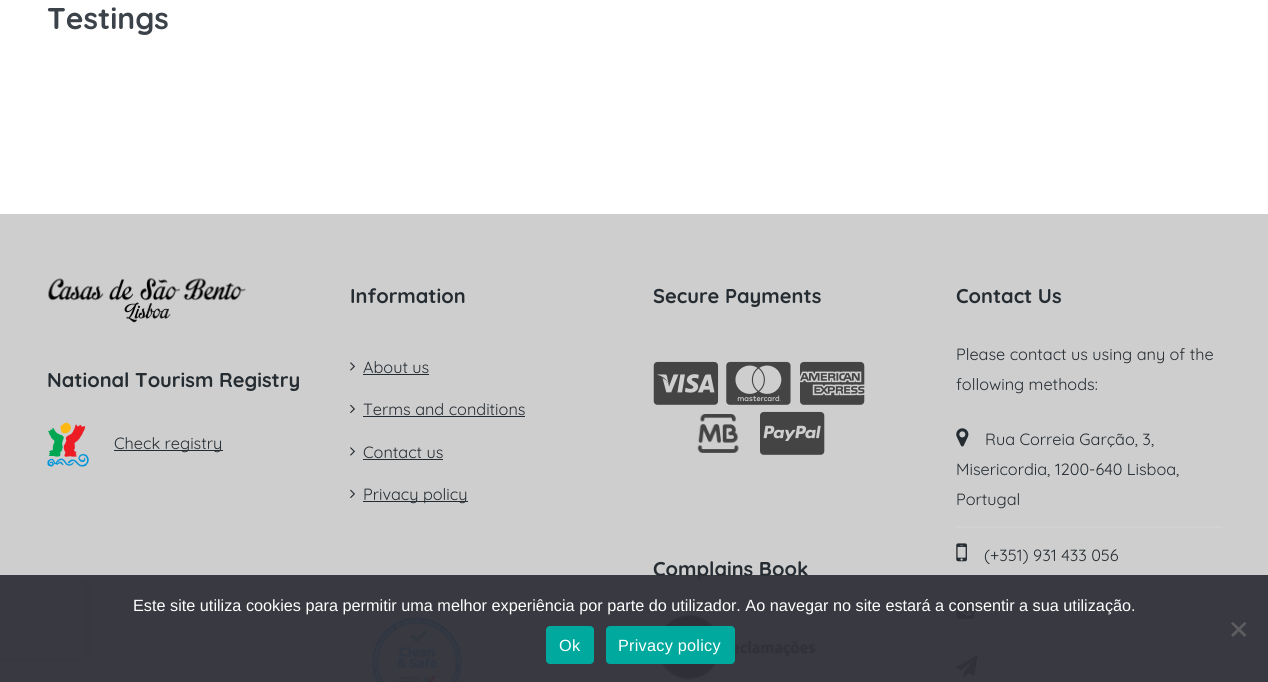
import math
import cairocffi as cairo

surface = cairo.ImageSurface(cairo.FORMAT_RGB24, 1268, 682)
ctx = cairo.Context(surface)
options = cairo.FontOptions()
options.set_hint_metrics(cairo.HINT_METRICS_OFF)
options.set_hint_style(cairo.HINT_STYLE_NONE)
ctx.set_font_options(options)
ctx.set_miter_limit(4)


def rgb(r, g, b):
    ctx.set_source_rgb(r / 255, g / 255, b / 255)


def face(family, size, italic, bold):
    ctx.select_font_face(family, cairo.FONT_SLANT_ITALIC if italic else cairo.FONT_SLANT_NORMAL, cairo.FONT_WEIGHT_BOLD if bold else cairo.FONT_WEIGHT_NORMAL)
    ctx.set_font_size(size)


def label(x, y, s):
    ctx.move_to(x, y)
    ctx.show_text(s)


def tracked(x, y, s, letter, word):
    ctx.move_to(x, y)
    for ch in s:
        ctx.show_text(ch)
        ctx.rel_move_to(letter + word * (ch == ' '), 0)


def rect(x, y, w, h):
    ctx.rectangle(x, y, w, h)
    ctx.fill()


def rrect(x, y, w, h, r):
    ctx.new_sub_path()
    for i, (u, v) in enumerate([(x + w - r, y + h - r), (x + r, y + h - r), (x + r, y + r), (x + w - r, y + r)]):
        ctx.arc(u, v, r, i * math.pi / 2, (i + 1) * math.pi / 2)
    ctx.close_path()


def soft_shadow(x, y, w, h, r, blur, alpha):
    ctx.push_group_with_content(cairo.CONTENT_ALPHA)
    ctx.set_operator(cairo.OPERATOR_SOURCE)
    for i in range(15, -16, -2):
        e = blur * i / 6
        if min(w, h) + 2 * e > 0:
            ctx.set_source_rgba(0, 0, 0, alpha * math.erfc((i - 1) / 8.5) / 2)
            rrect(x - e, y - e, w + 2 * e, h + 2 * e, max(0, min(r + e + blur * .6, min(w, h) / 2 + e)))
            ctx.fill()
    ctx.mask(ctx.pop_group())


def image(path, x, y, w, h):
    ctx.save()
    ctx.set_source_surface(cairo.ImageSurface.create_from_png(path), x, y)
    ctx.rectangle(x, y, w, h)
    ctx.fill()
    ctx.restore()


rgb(255, 255, 255)
ctx.paint()
face('Quicksand', 30, 0, 1)
rgb(59, 66, 73)
label(47, 29, 'Testings')
rgb(206, 206, 206)
rect(0, 214, 1268, 468)
image('image0.png', 48, 278, 198, 45)
face('Quicksand', 20, 0, 1)
rgb(37, 44, 50)
label(47, 387, 'National Tourism Registry')
image('image1.png', 47, 422, 42, 45)
rect(114, 450, 109, 1)
face('Quicksand', 16.25, 0, 0)
label(114, 449, 'Check registry')
face('Quicksand', 20, 0, 1)
label(350, 303, 'Information')
image('image2.png', 350, 362, 5, 9)
face('Quicksand', 16.25, 0, 0)
label(363, 373, 'About us')
rect(363, 374, 66, 1)
image('image3.png', 350, 404, 5, 9)
label(363, 415, 'Terms and conditions')
rect(363, 416, 162, 1)
image('image2.png', 350, 447, 5, 9)
label(363, 458, 'Contact us')
rect(363, 459, 80, 1)
image('image3.png', 350, 489, 5, 9)
rect(363, 501, 105, 1)
label(363, 500, 'Privacy policy')
image('image4.png', 371, 616, 92, 66)
face('Quicksand', 20, 0, 1)
label(653, 303, 'Secure Payments')
image('image5.png', 653, 361, 66, 44)
image('image6.png', 726, 361, 65, 44)
image('image7.png', 800, 361, 65, 44)
image('image8.png', 697, 414, 42, 39)
image('image9.png', 760, 411, 65, 44)
label(653, 576, 'Complains Book')
image('image10.png', 662, 615, 154, 65)
label(956, 303, 'Contact Us')
face('Quicksand', 16.25, 0, 0)
label(956, 360, 'Please contact us using any of the')
label(956, 390, 'following methods:')
ctx.new_path()
ctx.move_to(956, 527)
ctx.line_to(1222.5, 527)
rgb(216, 220, 225)
ctx.set_line_width(1.2)
ctx.set_dash([1.25, 1.25])
ctx.stroke()
image('image11.png', 956, 428, 13, 19)
rgb(37, 44, 50)
label(985, 445, 'Rua Correia Garção, 3,')
label(956, 475, 'Misericordia, 1200-640 Lisboa,')
label(956, 505, 'Portugal')
ctx.new_path()
ctx.move_to(956, 583)
ctx.line_to(1222.5, 583)
rgb(216, 220, 225)
ctx.stroke()
image('image12.png', 956, 543, 11, 19)
rgb(37, 44, 50)
label(984, 561, '(+351) 931 433 056')
ctx.new_path()
ctx.move_to(956, 639.5)
ctx.line_to(1222.5, 639.5)
rgb(216, 220, 225)
ctx.stroke()
image('image13.png', 956, 600, 19, 19)
image('image14.png', 956, 655, 22, 22)
ctx.save()
ctx.set_fill_rule(cairo.FILL_RULE_EVEN_ODD)
ctx.new_path()
ctx.move_to(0, 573)
ctx.line_to(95, 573)
ctx.line_to(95, 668)
ctx.line_to(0, 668)
ctx.close_path()
ctx.move_to(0.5, 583)
ctx.line_to(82.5, 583)
ctx.curve_to(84, 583, 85, 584, 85, 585.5)
ctx.line_to(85, 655.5)
ctx.curve_to(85, 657, 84, 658, 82.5, 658)
ctx.line_to(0.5, 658)
ctx.curve_to(-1, 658, -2, 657, -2, 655.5)
ctx.line_to(-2, 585.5)
ctx.curve_to(-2, 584, -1, 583, 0.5, 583)
ctx.close_path()
ctx.clip()
rgb(128, 128, 128)
soft_shadow(-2, 583, 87, 75, 2.5, 3, 1)
ctx.restore()
ctx.set_source_rgba(0.196, 0.196, 0.227, 0.95)
rect(0, 575, 1268, 107)
face('Liberation Sans', 16.25, 0, 0)
rgb(255, 255, 255)
label(133, 611, 'Este site utiliza cookies para permitir uma melhor experiência por parte do utilizador. Ao navegar no site estará a consentir a sua utilização.')
rgb(93, 93, 97)
ctx.new_path()
ctx.move_to(1244.5, 622)
ctx.line_to(1246.5, 623.5)
ctx.line_to(1233, 637)
ctx.line_to(1231, 635)
ctx.close_path()
ctx.fill()
ctx.new_path()
ctx.move_to(1231, 623.5)
ctx.line_to(1233, 622)
ctx.line_to(1246.5, 635)
ctx.line_to(1244.5, 637)
ctx.close_path()
ctx.fill()
rgb(0, 169, 157)
rrect(546, 626, 48, 38, 4)
ctx.fill()
rgb(255, 255, 255)
tracked(559, 651, 'Ok', 0.25, 0)
rgb(0, 169, 157)
rrect(606, 626, 129, 38, 4)
ctx.fill()
rgb(255, 255, 255)
tracked(618, 651, 'Privacy policy', 0.25, 0)
surface.write_to_png('render.png')
